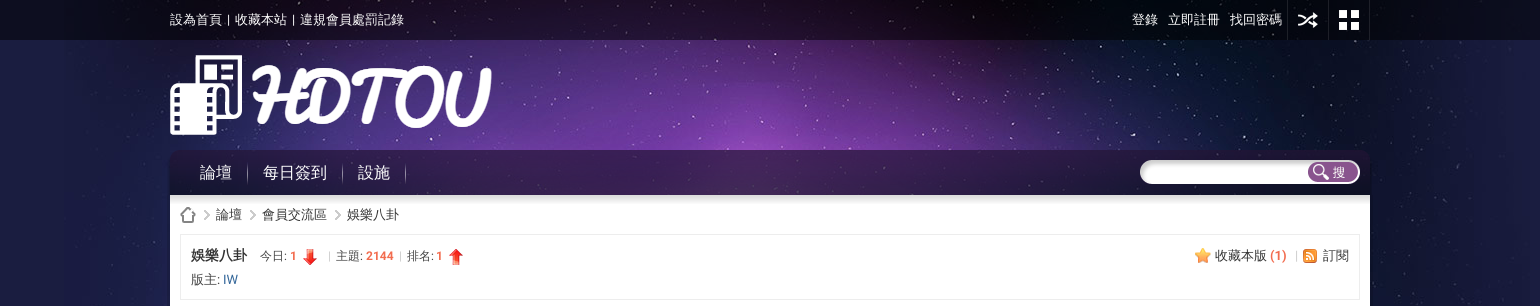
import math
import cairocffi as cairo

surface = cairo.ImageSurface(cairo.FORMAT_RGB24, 1540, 306)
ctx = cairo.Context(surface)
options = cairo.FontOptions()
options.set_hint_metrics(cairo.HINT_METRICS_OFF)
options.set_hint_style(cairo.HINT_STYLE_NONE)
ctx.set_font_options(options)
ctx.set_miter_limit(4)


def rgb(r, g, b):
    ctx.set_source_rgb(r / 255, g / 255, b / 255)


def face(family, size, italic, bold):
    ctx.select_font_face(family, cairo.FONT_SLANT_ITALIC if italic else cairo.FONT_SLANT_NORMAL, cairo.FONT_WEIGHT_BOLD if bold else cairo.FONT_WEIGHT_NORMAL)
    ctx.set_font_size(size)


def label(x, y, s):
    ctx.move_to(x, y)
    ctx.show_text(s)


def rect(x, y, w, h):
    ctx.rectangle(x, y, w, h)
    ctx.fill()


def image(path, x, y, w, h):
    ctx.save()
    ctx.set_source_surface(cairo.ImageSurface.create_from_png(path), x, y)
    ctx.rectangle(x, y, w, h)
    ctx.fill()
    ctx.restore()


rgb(26, 29, 64)
ctx.paint()
image('image0.png', 64, 0, 1466, 306)
ctx.set_source_rgba(0, 0, 0, 0.5)
rect(0, 0, 1540, 40)
face('WenQuanYi Zen Hei Medium', 13, 0, 0)
rgb(255, 255, 255)
label(170, 24, '設為首頁')
face('Roboto', 13, 0, 0)
label(227, 24, '|')
face('WenQuanYi Zen Hei Medium', 13, 0, 0)
label(235, 24, '收藏本站')
face('Roboto', 13, 0, 0)
label(292, 24, '|')
face('WenQuanYi Zen Hei Medium', 13, 0, 0)
label(300, 24, '違規會員處罰記錄')
label(1132, 24, '登錄')
label(1168, 24, '立即註冊')
label(1230, 24, '找回密碼')
rgb(29, 32, 40)
rect(1287, 0, 1, 40)
image('image1.png', 1298, 12, 20, 16)
ctx.set_source_rgba(1, 1, 1, 0.1)
rect(1328, 0, 1, 40)
image('image2.png', 1339, 10, 20, 20)
rect(1369, 0, 1, 40)
image('image3.png', 170, 55, 322, 80)
image('image4.png', 167, 150, 13, 45)
image('image5.png', 1360, 150, 12, 45)
image('image6.png', 180, 150, 1180, 45)
image('image7.png', 247, 162, 1, 23)
face('WenQuanYi Zen Hei Medium', 16, 0, 0)
rgb(255, 255, 255)
label(200, 178, '論壇')
image('image8.png', 342, 163, 1, 22)
label(263, 178, '每日簽到')
image('image9.png', 405, 163, 1, 21)
label(358, 178, '設施')
image('image10.png', 1140, 160, 220, 24)
ctx.set_source_rgba(0, 0, 0, 0.13)
rect(167, 195, 3, 111)
rect(1370, 195, 3, 111)
rgb(255, 255, 255)
rect(170, 204, 1200, 102)
image('image11.png', 170, 195, 1200, 9)
image('image12.png', 180, 207, 16, 16)
image('image13.png', 204, 210, 6, 10)
face('WenQuanYi Zen Hei Medium', 13, 0, 0)
rgb(51, 51, 51)
label(216, 219, '論壇')
image('image13.png', 250, 210, 6, 10)
label(262, 219, '會員交流區')
image('image13.png', 335, 210, 6, 10)
label(347, 219, '娛樂八卦')
ctx.rectangle(180.5, 234.5, 1179, 65)
rgb(237, 237, 237)
ctx.set_line_width(1)
ctx.stroke()
face('WenQuanYi Zen Hei', 14, 0, 1)
rgb(51, 51, 51)
label(191, 260, '娛樂八卦')
face('WenQuanYi Zen Hei Medium', 12, 0, 0)
rgb(68, 68, 68)
label(260, 260, '今日')
face('Roboto', 12, 0, 0)
label(284, 260, ':')
face('Roboto', 12, 0, 1)
rgb(242, 108, 79)
label(290, 260, '1')
image('image14.png', 303, 249, 14, 16)
face('Roboto', 12, 0, 0)
rgb(204, 204, 204)
label(328, 260, '|')
face('WenQuanYi Zen Hei Medium', 12, 0, 0)
rgb(68, 68, 68)
label(336, 260, '主題')
face('Roboto', 12, 0, 0)
label(360, 260, ':')
face('Roboto', 12, 0, 1)
rgb(242, 108, 79)
label(366, 260, '2144')
face('Roboto', 12, 0, 0)
rgb(204, 204, 204)
label(399, 260, '|')
face('WenQuanYi Zen Hei Medium', 12, 0, 0)
rgb(68, 68, 68)
label(407, 260, '排名')
face('Roboto', 12, 0, 0)
label(431, 260, ':')
face('Roboto', 12, 0, 1)
rgb(242, 108, 79)
label(436, 260, '1')
image('image15.png', 449, 249, 14, 16)
image('image16.png', 1195, 248, 16, 15)
face('WenQuanYi Zen Hei Medium', 13, 0, 0)
rgb(51, 51, 51)
label(1215, 260, '收藏本版')
face('Roboto', 13, 0, 1)
rgb(242, 108, 79)
label(1270, 260, '(1)')
face('Roboto', 13, 0, 0)
rgb(204, 204, 204)
label(1295, 260, '|')
image('image17.png', 1303, 249, 14, 14)
face('WenQuanYi Zen Hei Medium', 13, 0, 0)
rgb(51, 51, 51)
label(1323, 260, '訂閱')
rgb(68, 68, 68)
label(191, 284, '版主')
face('Roboto', 13, 0, 0)
label(217, 284, ':')
rgb(51, 102, 153)
label(223, 284, 'IW')
surface.write_to_png('render.png')
